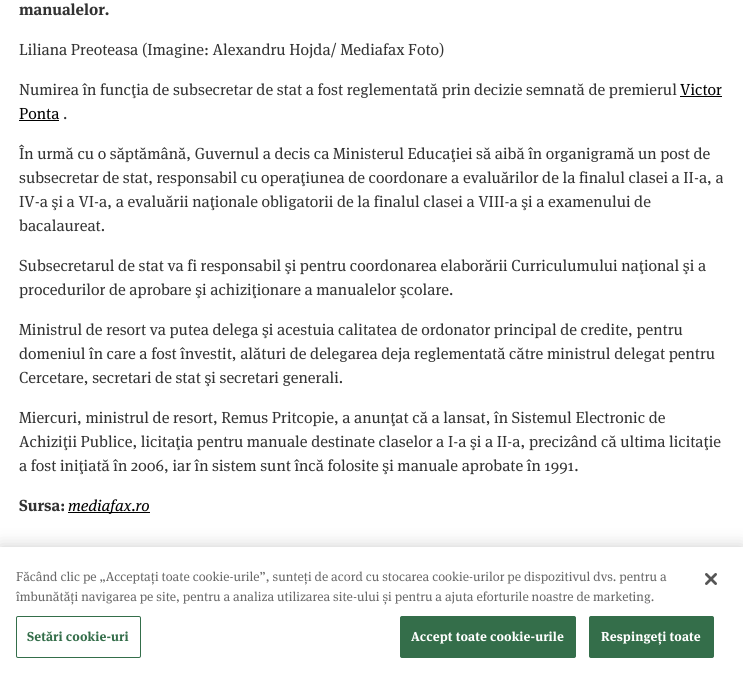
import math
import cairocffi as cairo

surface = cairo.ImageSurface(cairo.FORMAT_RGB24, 743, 676)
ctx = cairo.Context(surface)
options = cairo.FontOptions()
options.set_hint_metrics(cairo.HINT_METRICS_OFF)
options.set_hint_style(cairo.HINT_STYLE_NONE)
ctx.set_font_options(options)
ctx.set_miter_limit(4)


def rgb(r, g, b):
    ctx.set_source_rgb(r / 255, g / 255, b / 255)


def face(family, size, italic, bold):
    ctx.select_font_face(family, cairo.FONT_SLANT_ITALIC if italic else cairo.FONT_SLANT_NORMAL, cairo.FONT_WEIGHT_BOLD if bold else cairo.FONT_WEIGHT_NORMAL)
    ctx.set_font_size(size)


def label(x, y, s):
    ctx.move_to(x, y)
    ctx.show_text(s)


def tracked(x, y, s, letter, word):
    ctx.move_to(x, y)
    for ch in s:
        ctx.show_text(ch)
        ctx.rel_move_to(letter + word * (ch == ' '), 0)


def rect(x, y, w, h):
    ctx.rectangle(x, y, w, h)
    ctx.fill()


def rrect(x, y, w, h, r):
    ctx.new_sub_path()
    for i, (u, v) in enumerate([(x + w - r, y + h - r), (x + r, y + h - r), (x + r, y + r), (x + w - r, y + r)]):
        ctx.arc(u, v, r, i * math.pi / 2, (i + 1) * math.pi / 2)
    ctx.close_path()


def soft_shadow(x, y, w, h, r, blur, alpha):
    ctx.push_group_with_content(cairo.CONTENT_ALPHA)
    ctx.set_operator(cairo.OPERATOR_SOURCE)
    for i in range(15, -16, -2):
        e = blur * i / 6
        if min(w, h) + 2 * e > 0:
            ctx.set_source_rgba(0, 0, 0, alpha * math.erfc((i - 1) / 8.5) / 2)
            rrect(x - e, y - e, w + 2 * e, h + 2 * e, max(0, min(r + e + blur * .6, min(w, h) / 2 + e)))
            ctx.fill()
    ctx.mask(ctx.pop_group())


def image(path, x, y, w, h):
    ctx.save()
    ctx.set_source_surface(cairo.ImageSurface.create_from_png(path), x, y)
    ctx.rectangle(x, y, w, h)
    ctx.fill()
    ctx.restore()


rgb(255, 255, 255)
ctx.paint()
face('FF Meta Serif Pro', 16, 0, 0)
rgb(51, 51, 51)
label(19, 15, 'manualelor.')
face('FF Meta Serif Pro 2', 16, 0, 0)
label(19, 55, 'Liliana Preoteasa (Imagine: Alexandru Hojda/ Mediafax Foto)')
label(19, 95, 'Numirea în funcţia de subsecretar de stat a fost reglementată prin decizie semnată de premierul')
rgb(0, 0, 0)
label(680, 95, 'Victor')
rect(680, 96, 42, 1)
label(19, 119, 'Ponta')
rect(19, 120, 40, 1)
rgb(51, 51, 51)
label(63, 119, '.')
label(19, 159, 'În urmă cu o săptămână, Guvernul a decis ca Ministerul Educaţiei să aibă în organigramă un post de')
label(19, 183, 'subsecretar de stat, responsabil cu operaţiunea de coordonare a evaluărilor de la finalul clasei a II-a, a')
label(19, 207, 'IV-a şi a VI-a, a evaluării naţionale obligatorii de la finalul clasei a VIII-a şi a examenului de')
label(19, 231, 'bacalaureat.')
label(19, 271, 'Subsecretarul de stat va fi responsabil şi pentru coordonarea elaborării Curriculumului naţional şi a')
label(19, 295, 'procedurilor de aprobare şi achiziţionare a manualelor şcolare.')
label(19, 335, 'Ministrul de resort va putea delega şi acestuia calitatea de ordonator principal de credite, pentru')
label(19, 359, 'domeniul în care a fost învestit, alături de delegarea deja reglementată către ministrul delegat pentru')
label(19, 383, 'Cercetare, secretari de stat şi secretari generali.')
label(19, 423, 'Miercuri, ministrul de resort, Remus Pritcopie, a anunţat că a lansat, în Sistemul Electronic de')
label(19, 447, 'Achiziţii Publice, licitaţia pentru manuale destinate claselor a I-a şi a II-a, precizând că ultima licitaţie')
label(19, 471, 'a fost iniţiată în 2006, iar în sistem sunt încă folosite şi manuale aprobate în 1991.')
face('FF Meta Serif Pro', 16, 0, 0)
label(19, 511, 'Sursa:')
rgb(0, 0, 0)
rect(68, 512, 82, 1)
face('FF Meta Serif Pro', 16, 1, 0)
label(68, 511, 'mediafax.ro')
rgb(0, 0, 0)
soft_shadow(0, 547, 743, 129, 0, 9, 0.2)
rgb(255, 255, 255)
rect(0, 547, 743, 129)
face('FF Meta Serif Pro 2', 13, 0, 0)
rgb(105, 105, 105)
label(16, 581, 'Făcând clic pe „Acceptați toate cookie-urile”, sunteți de acord cu stocarea cookie-urilor pe dispozitivul dvs. pentru a')
label(16, 601, 'îmbunătăți navigarea pe site, pentru a analiza utilizarea site-ului și pentru a ajuta eforturile noastre de marketing.')
rrect(16.5, 616.5, 124, 41, 1.5)
rgb(52, 110, 74)
ctx.set_line_width(1)
ctx.stroke()
face('FF Meta Serif Pro', 13, 0, 0)
tracked(27, 641, 'Setări cookie-uri', 0.1, 0)
rrect(400.5, 616.5, 175, 41, 1.5)
ctx.fill_preserve()
ctx.stroke()
rgb(255, 255, 255)
tracked(411, 641, 'Accept toate cookie-urile', 0.1, 0)
rgb(52, 110, 74)
rrect(589.5, 616.5, 124, 41, 1.5)
ctx.fill_preserve()
ctx.stroke()
rgb(255, 255, 255)
tracked(601, 641, 'Respingeți toate', 0.1, 0)
image('image0.png', 705, 573, 12, 12)
surface.write_to_png('render.png')
